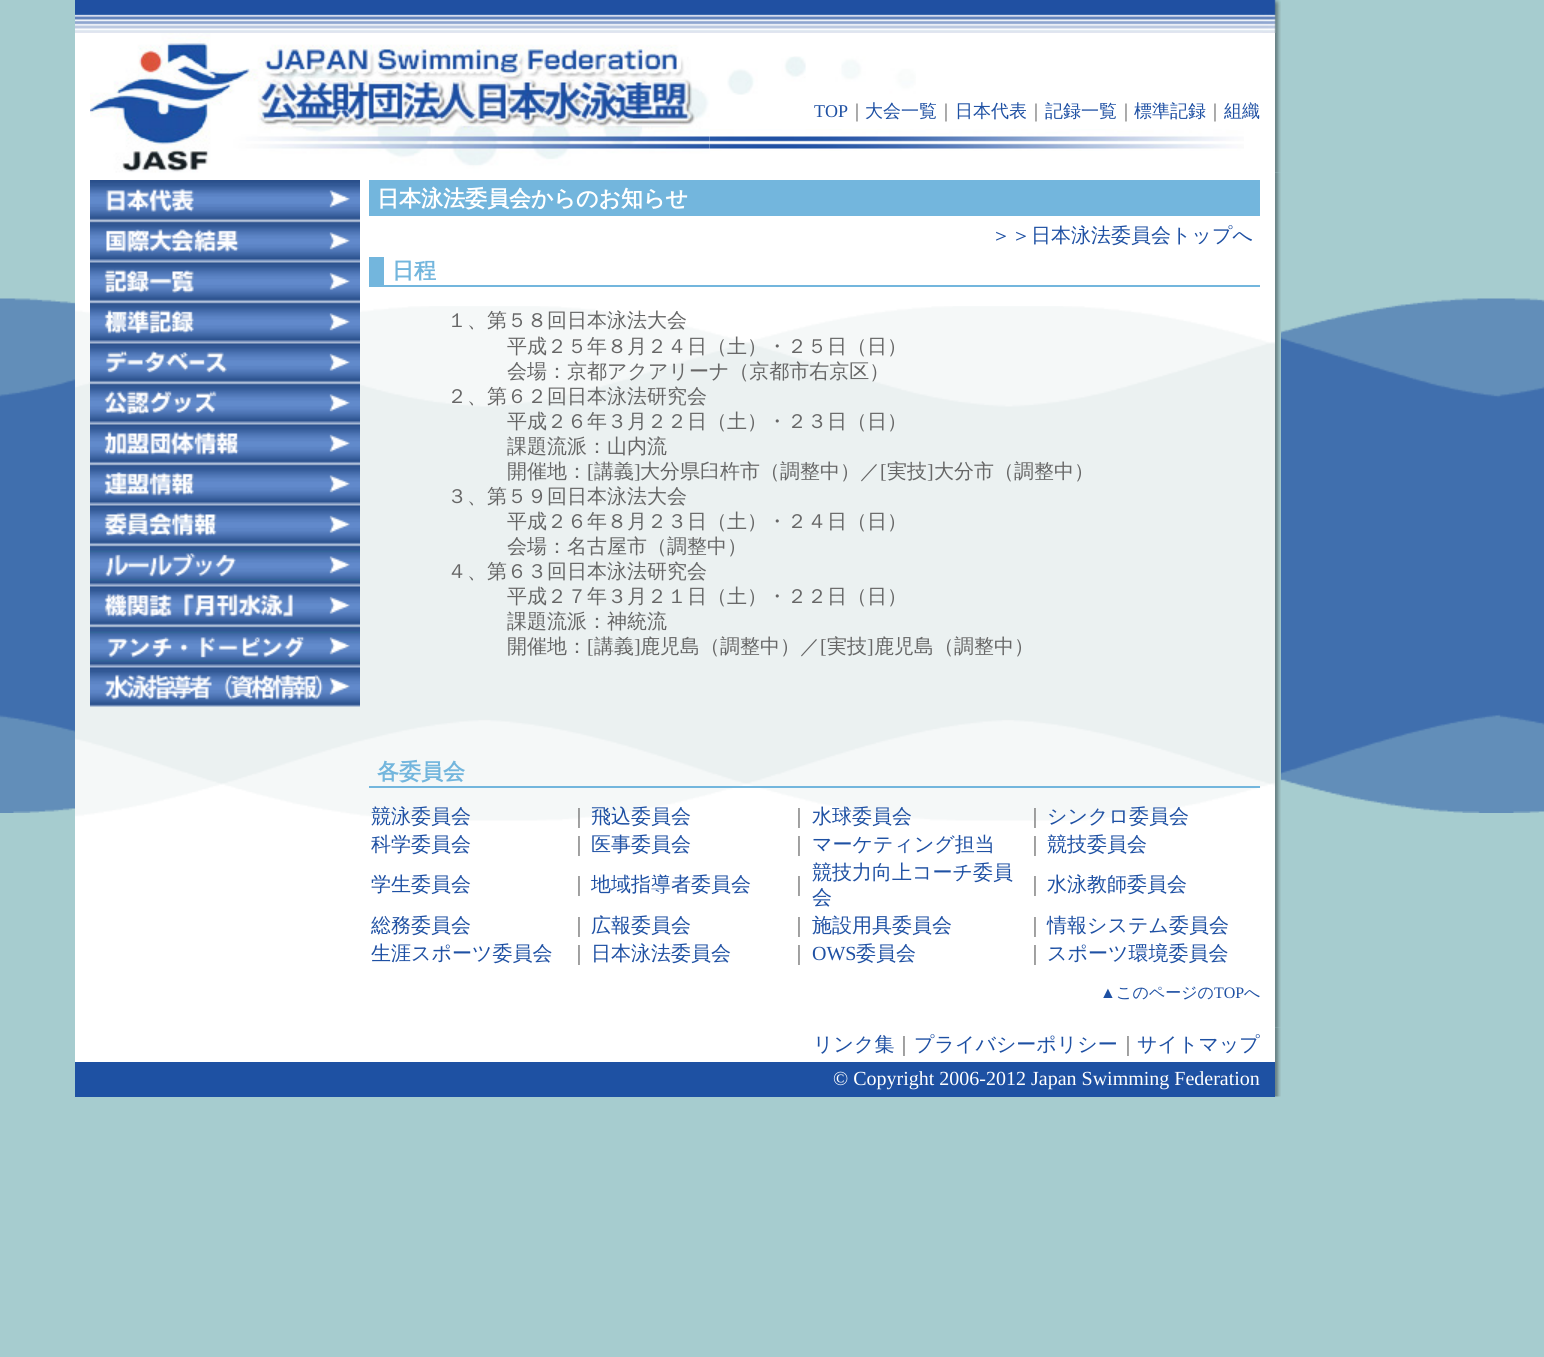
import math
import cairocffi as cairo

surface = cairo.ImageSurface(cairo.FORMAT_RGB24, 1544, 1357)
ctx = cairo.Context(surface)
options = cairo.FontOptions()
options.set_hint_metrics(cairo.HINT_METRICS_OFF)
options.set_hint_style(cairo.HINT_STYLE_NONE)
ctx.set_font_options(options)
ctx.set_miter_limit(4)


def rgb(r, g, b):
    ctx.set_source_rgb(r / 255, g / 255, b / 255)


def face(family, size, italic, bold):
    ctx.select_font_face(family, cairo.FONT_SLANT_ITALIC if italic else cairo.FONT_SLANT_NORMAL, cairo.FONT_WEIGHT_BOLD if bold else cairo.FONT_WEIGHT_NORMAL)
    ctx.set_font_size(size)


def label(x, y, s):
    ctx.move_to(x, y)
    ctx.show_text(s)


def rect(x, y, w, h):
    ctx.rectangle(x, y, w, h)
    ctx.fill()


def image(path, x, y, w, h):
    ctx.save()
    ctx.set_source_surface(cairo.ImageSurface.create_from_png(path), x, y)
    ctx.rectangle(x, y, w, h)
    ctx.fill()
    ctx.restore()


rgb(166, 204, 207)
ctx.paint()
image('image0.png', 0, 298, 1544, 515)
image('image1.png', 75, 0, 1206, 33)
rgb(255, 255, 255)
rect(75, 33, 1200, 1029)
image('image2.png', 90, 33, 620, 140)
image('image3.png', 727, 56, 189, 39)
face('Liberation Serif', 18, 0, 0)
rgb(30, 80, 163)
label(814, 117, 'TOP')
face('WenQuanYi Zen Hei Medium', 18, 0, 0)
rgb(102, 102, 102)
label(848, 117, '｜')
rgb(30, 80, 163)
label(865, 117, '大会一覧')
rgb(102, 102, 102)
label(937, 117, '｜')
rgb(30, 80, 163)
label(955, 117, '日本代表')
rgb(102, 102, 102)
label(1027, 117, '｜')
rgb(30, 80, 163)
label(1045, 117, '記録一覧')
rgb(102, 102, 102)
label(1117, 117, '｜')
rgb(30, 80, 163)
label(1134, 117, '標準記録')
rgb(102, 102, 102)
label(1206, 117, '｜')
rgb(30, 80, 163)
label(1224, 117, '組織')
image('image4.png', 709, 129, 535, 22)
image('image5.png', 1275, 33, 6, 140)
image('image6.png', 1275, 172, 6, 8)
image('image7.png', 75, 306, 1200, 515)
image('image8.png', 90, 180, 270, 41)
image('image9.png', 90, 220, 270, 41)
image('image10.png', 90, 261, 270, 41)
image('image11.png', 90, 301, 270, 41)
image('image12.png', 90, 342, 270, 41)
image('image13.png', 90, 382, 270, 41)
image('image14.png', 90, 423, 270, 41)
image('image15.png', 90, 463, 270, 41)
image('image16.png', 90, 504, 270, 41)
image('image17.png', 90, 544, 270, 41)
image('image18.png', 90, 585, 270, 41)
image('image19.png', 90, 625, 270, 41)
image('image20.png', 90, 666, 270, 41)
rgb(115, 182, 221)
rect(369, 180, 891, 36)
face('WenQuanYi Zen Hei', 22, 0, 1)
rgb(255, 255, 255)
label(377, 206, '日本泳法委員会からのお知らせ')
face('WenQuanYi Zen Hei Medium', 20, 0, 0)
rgb(30, 80, 163)
label(991, 242, '＞＞日本泳法委員会トップへ')
rgb(115, 182, 221)
rect(369, 257, 15, 30)
rect(384, 285, 876, 2)
face('WenQuanYi Zen Hei', 22, 0, 1)
label(392, 278, '日程')
face('WenQuanYi Zen Hei Medium', 20, 0, 0)
rgb(102, 102, 102)
label(447, 327, '１、第５８回日本泳法大会')
label(507, 353, '平成２５年８月２４日（土）・２５日（日）')
label(507, 378, '会場：京都アクアリーナ（京都市右京区）')
label(447, 403, '２、第６２回日本泳法研究会')
label(507, 428, '平成２６年３月２２日（土）・２３日（日）')
label(507, 453, '課題流派：山内流')
label(507, 478, '開催地：')
face('Liberation Serif', 20, 0, 0)
label(587, 478, '[')
face('WenQuanYi Zen Hei Medium', 20, 0, 0)
label(594, 478, '講義')
face('Liberation Serif', 20, 0, 0)
label(634, 478, ']')
face('WenQuanYi Zen Hei Medium', 20, 0, 0)
label(640, 478, '大分県臼杵市（調整中）／')
face('Liberation Serif', 20, 0, 0)
label(880, 478, '[')
face('WenQuanYi Zen Hei Medium', 20, 0, 0)
label(887, 478, '実技')
face('Liberation Serif', 20, 0, 0)
label(927, 478, ']')
face('WenQuanYi Zen Hei Medium', 20, 0, 0)
label(934, 478, '大分市（調整中）')
label(447, 503, '３、第５９回日本泳法大会')
label(507, 528, '平成２６年８月２３日（土）・２４日（日）')
label(507, 553, '会場：名古屋市（調整中）')
label(447, 578, '４、第６３回日本泳法研究会')
label(507, 603, '平成２７年３月２１日（土）・２２日（日）')
label(507, 628, '課題流派：神統流')
label(507, 653, '開催地：')
face('Liberation Serif', 20, 0, 0)
label(587, 653, '[')
face('WenQuanYi Zen Hei Medium', 20, 0, 0)
label(594, 653, '講義')
face('Liberation Serif', 20, 0, 0)
label(634, 653, ']')
face('WenQuanYi Zen Hei Medium', 20, 0, 0)
label(640, 653, '鹿児島（調整中）／')
face('Liberation Serif', 20, 0, 0)
label(820, 653, '[')
face('WenQuanYi Zen Hei Medium', 20, 0, 0)
label(827, 653, '実技')
face('Liberation Serif', 20, 0, 0)
label(867, 653, ']')
face('WenQuanYi Zen Hei Medium', 20, 0, 0)
label(874, 653, '鹿児島（調整中）')
rgb(115, 182, 221)
rect(369, 786, 891, 2)
face('WenQuanYi Zen Hei', 22, 0, 1)
label(377, 779, '各委員会')
face('WenQuanYi Zen Hei Medium', 20, 0, 0)
rgb(30, 80, 163)
label(371, 823, '競泳委員会')
rgb(102, 102, 102)
label(569, 823, '｜')
rgb(30, 80, 163)
label(591, 823, '飛込委員会')
rgb(102, 102, 102)
label(789, 823, '｜')
rgb(30, 80, 163)
label(812, 823, '水球委員会')
rgb(102, 102, 102)
label(1025, 823, '｜')
rgb(30, 80, 163)
label(1047, 823, 'シンクロ委員会')
label(371, 851, '科学委員会')
rgb(102, 102, 102)
label(569, 851, '｜')
rgb(30, 80, 163)
label(591, 851, '医事委員会')
rgb(102, 102, 102)
label(789, 851, '｜')
rgb(30, 80, 163)
label(812, 851, 'マーケティング担当')
rgb(102, 102, 102)
label(1025, 851, '｜')
rgb(30, 80, 163)
label(1047, 851, '競技委員会')
label(371, 891, '学生委員会')
rgb(102, 102, 102)
label(569, 891, '｜')
rgb(30, 80, 163)
label(591, 891, '地域指導者委員会')
rgb(102, 102, 102)
label(789, 891, '｜')
rgb(30, 80, 163)
label(812, 879, '競技力向上コーチ委員')
label(812, 904, '会')
rgb(102, 102, 102)
label(1025, 891, '｜')
rgb(30, 80, 163)
label(1047, 891, '水泳教師委員会')
label(371, 932, '総務委員会')
rgb(102, 102, 102)
label(569, 932, '｜')
rgb(30, 80, 163)
label(591, 932, '広報委員会')
rgb(102, 102, 102)
label(789, 932, '｜')
rgb(30, 80, 163)
label(812, 932, '施設用具委員会')
rgb(102, 102, 102)
label(1025, 932, '｜')
rgb(30, 80, 163)
label(1047, 932, '情報システム委員会')
label(371, 960, '生涯スポーツ委員会')
rgb(102, 102, 102)
label(569, 960, '｜')
rgb(30, 80, 163)
label(591, 960, '日本泳法委員会')
rgb(102, 102, 102)
label(789, 960, '｜')
face('Liberation Serif', 20, 0, 0)
rgb(30, 80, 163)
label(812, 960, 'OWS')
face('WenQuanYi Zen Hei Medium', 20, 0, 0)
label(856, 960, '委員会')
rgb(102, 102, 102)
label(1025, 960, '｜')
rgb(30, 80, 163)
label(1047, 960, 'スポーツ環境委員会')
face('Liberation Serif', 16, 0, 0)
label(1100, 998, '▲')
face('WenQuanYi Zen Hei Medium', 16, 0, 0)
label(1116, 998, 'このページの')
face('Liberation Serif', 16, 0, 0)
label(1214, 998, 'TOP')
face('WenQuanYi Zen Hei Medium', 16, 0, 0)
label(1244, 998, 'へ')
image('image21.png', 1275, 180, 6, 848)
face('WenQuanYi Zen Hei Medium', 20, 0, 0)
label(813, 1051, 'リンク集')
rgb(102, 102, 102)
label(894, 1051, '｜')
rgb(30, 80, 163)
label(914, 1051, 'プライバシーポリシー')
rgb(102, 102, 102)
label(1118, 1051, '｜')
rgb(30, 80, 163)
label(1137, 1051, 'サイトマップ')
image('image22.png', 1275, 1027, 6, 35)
rgb(30, 81, 163)
rect(75, 1062, 1200, 35)
face('Liberation Serif', 20, 0, 0)
rgb(255, 255, 255)
label(833, 1085, '© Copyright 2006-2012 Japan Swimming Federation')
image('image23.png', 1275, 1062, 6, 35)
surface.write_to_png('render.png')
